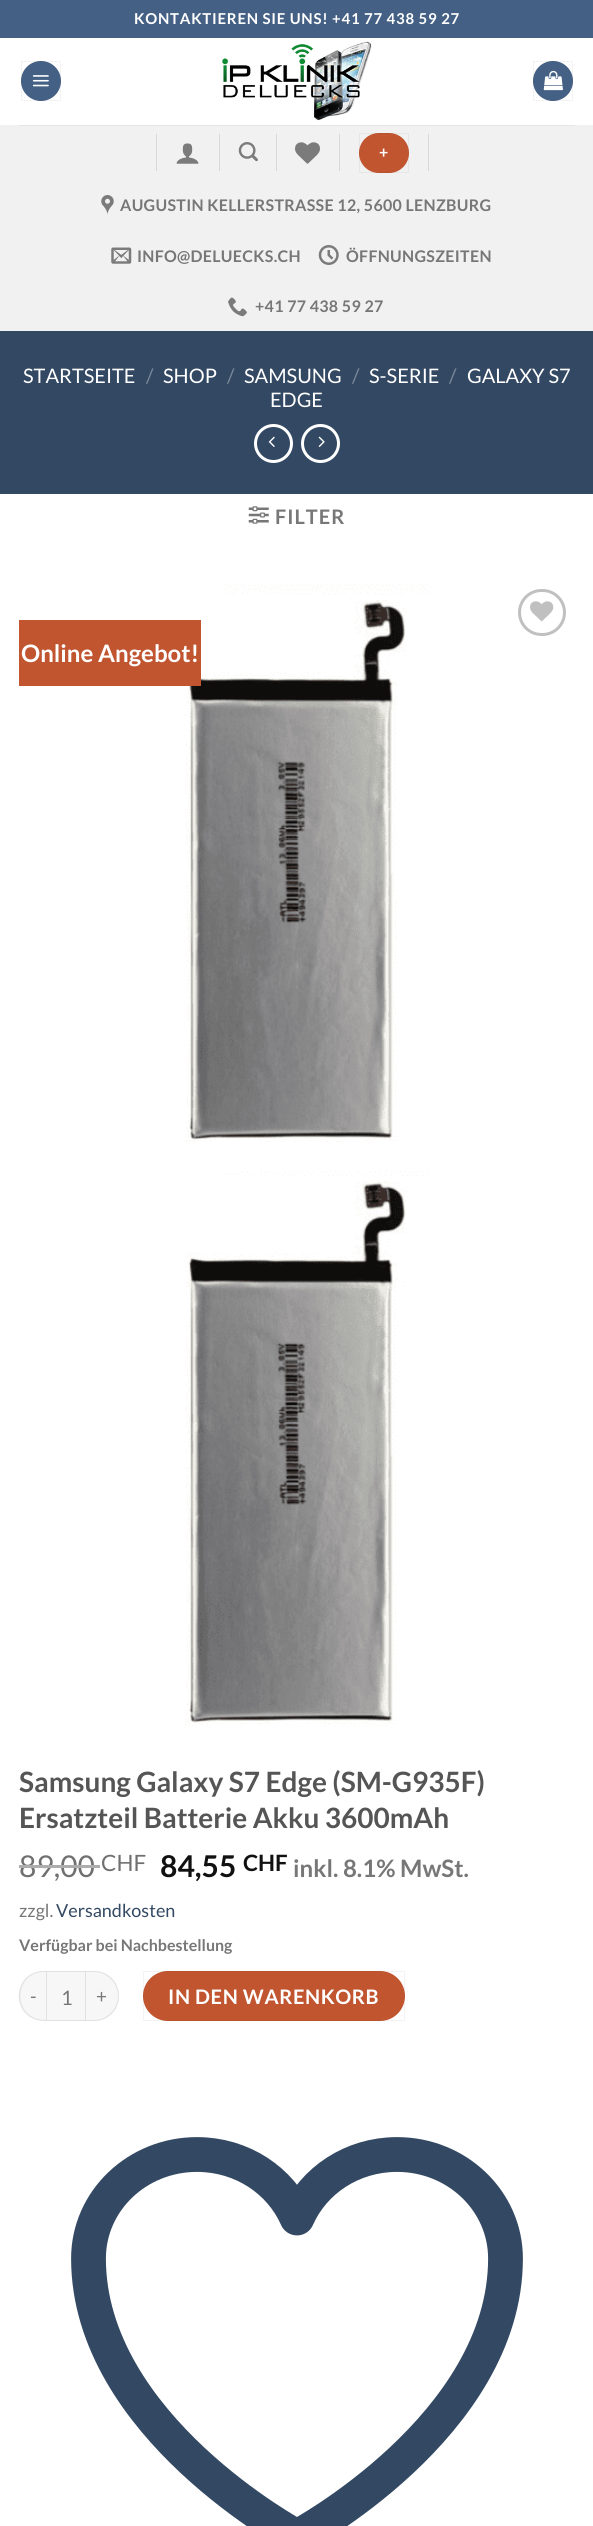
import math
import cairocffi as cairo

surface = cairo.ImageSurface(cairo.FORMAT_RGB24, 593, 2526)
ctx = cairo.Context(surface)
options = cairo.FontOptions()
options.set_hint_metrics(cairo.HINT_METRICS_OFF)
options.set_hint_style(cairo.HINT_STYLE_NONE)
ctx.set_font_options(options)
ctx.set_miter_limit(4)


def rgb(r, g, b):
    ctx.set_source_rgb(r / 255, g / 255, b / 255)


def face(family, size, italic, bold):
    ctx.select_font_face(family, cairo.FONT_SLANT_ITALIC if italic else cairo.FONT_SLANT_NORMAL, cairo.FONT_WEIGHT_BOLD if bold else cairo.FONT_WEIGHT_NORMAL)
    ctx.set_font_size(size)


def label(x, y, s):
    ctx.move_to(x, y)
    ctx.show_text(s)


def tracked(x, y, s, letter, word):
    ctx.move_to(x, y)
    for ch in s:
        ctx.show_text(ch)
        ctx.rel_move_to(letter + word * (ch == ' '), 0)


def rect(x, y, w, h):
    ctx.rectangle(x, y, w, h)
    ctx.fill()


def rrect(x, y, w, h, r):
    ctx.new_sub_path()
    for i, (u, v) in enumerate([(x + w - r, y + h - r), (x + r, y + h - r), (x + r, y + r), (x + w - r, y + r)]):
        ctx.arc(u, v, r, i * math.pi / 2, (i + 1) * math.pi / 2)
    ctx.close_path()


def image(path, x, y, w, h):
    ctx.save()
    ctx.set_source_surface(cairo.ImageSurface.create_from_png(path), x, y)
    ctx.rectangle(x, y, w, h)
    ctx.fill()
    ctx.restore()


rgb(255, 255, 255)
ctx.paint()
rgb(68, 96, 132)
rect(0, 0, 593, 38)
face('Lato', 15, 0, 1)
rgb(255, 255, 255)
tracked(134, 24, 'KONTAKTIEREN SIE UNS! +41 77 438 59 27', 0.75, 0)
rgb(68, 96, 132)
ctx.new_path()
ctx.arc(41, 81, 20, 0, 2 * math.pi)
ctx.fill()
ctx.rectangle(21.5, 61.5, 39, 39)
ctx.set_source_rgba(0, 0, 0, 0.05)
ctx.set_line_width(1)
ctx.stroke()
image('image0.png', 32, 75, 17, 12)
image('image1.png', 222, 41, 150, 80)
rgb(68, 96, 132)
ctx.arc(553, 81, 20, 0, 2 * math.pi)
ctx.fill()
ctx.rectangle(533.5, 61.5, 39, 39)
ctx.set_source_rgba(0, 0, 0, 0.05)
ctx.stroke()
image('image2.png', 543, 70, 20, 21)
rgb(241, 241, 241)
rect(0, 125, 593, 206)
rgb(229, 229, 229)
rect(19, 125, 556, 1)
rgb(217, 217, 217)
rect(156, 134, 1, 37)
image('image3.png', 176, 143, 23, 21)
rect(219, 134, 1, 37)
image('image4.png', 238, 142, 20, 20)
rect(276, 134, 1, 37)
image('image5.png', 295, 142, 25, 22)
rect(339, 134, 1, 37)
rgb(192, 85, 48)
rrect(359, 133, 50, 40, 20)
ctx.fill()
ctx.rectangle(359.5, 133.5, 49, 39)
ctx.set_source_rgba(0, 0, 0, 0.05)
ctx.stroke()
face('Lato', 16, 0, 1)
rgb(255, 255, 255)
label(379, 158, '+')
rgb(217, 217, 217)
rect(428, 134, 1, 37)
image('image6.png', 101, 195, 13, 20)
rgb(119, 119, 119)
tracked(120, 211, 'AUGUSTIN KELLERSTRASSE 12, 5600 LENZBURG', 0.3, 0)
image('image7.png', 111, 247, 21, 17)
tracked(137, 262, 'INFO@DELUECKS.CH', 0.3, 0)
image('image8.png', 318, 245, 21, 20)
tracked(346, 262, 'ÖFFNUNGSZEITEN', 0.3, 0)
image('image9.png', 228, 297, 19, 20)
tracked(255, 312, '+41 77 438 59 27', 0.3, 0)
rgb(51, 72, 99)
rect(0, 331, 593, 163)
face('Lato', 20, 0, 0)
rgb(255, 255, 255)
label(23, 383, 'STARTSEITE')
rgb(122, 136, 154)
label(146, 383, '/')
rgb(255, 255, 255)
label(163, 383, 'SHOP')
rgb(122, 136, 154)
label(227, 383, '/')
rgb(255, 255, 255)
label(244, 383, 'SAMSUNG')
rgb(122, 136, 154)
label(352, 383, '/')
rgb(255, 255, 255)
label(369, 383, 'S-SERIE')
rgb(122, 136, 154)
label(449, 383, '/')
rgb(255, 255, 255)
label(467, 383, 'GALAXY S7')
label(270, 407, 'EDGE')
ctx.new_path()
ctx.arc(273.5, 443.5, 18, 0, 2 * math.pi)
ctx.set_line_width(3)
ctx.stroke()
image('image10.png', 268, 436, 7, 11)
ctx.arc(320.5, 443.5, 18, 0, 2 * math.pi)
ctx.stroke()
image('image11.png', 318, 436, 7, 11)
image('image12.png', 248, 506, 21, 18)
face('Lato', 20, 0, 1)
rgb(119, 119, 119)
tracked(275, 524, 'FILTER', 1, 0)
image('image13.png', 185, 583, 246, 561)
rrect(519.5, 590.5, 45, 44, 22)
rgb(192, 192, 192)
ctx.stroke()
image('image14.png', 530, 601, 24, 21)
rgb(192, 85, 48)
rect(19, 620, 182, 66)
face('Lato', 24, 0, 1)
rgb(255, 255, 255)
label(21, 662, 'Online Angebot!')
image('image15.png', 185, 1171, 244, 556)
face('Lato', 28, 0, 1)
rgb(85, 85, 85)
label(19, 1792, 'Samsung Galaxy S7 Edge (SM-G935F)')
label(19, 1828, 'Ersatzteil Batterie Akku 3600mAh')
face('Lato', 30, 0, 0)
rgb(112, 112, 112)
label(19, 1877, '89,00')
rgb(173, 173, 173)
rect(19, 1865, 81, 3)
face('Lato', 22.5, 0, 0)
rgb(112, 112, 112)
label(101, 1871, 'CHF')
face('Lato', 30, 0, 1)
rgb(17, 17, 17)
label(160, 1877, '84,55')
face('Lato', 22.5, 0, 1)
label(243, 1871, 'CHF')
face('Lato', 24, 0, 1)
rgb(119, 119, 119)
label(293, 1877, 'inkl. 8.1% MwSt.')
face('Lato', 18, 0, 0)
label(19, 1917, 'zzgl.')
rgb(51, 72, 98)
label(56, 1917, 'Versandkosten')
face('Lato', 16, 0, 1)
rgb(119, 119, 119)
label(19, 1951, 'Verfügbar bei Nachbestellung')
rgb(247, 247, 247)
ctx.new_path()
ctx.move_to(44, 1971)
ctx.line_to(46, 1971)
ctx.line_to(46, 2021)
ctx.line_to(44, 2021)
ctx.curve_to(30, 2021, 19, 2010, 19, 1996)
ctx.curve_to(19, 1982, 30, 1971, 44, 1971)
ctx.close_path()
ctx.fill()
ctx.set_source_rgba(0, 0, 0, 0.09)
ctx.set_fill_rule(cairo.FILL_RULE_EVEN_ODD)
ctx.new_path()
ctx.move_to(44, 1971)
ctx.line_to(46, 1971)
ctx.line_to(46, 2021)
ctx.curve_to(9, 2021, 11, 1971, 44, 1971)
ctx.close_path()
ctx.move_to(44, 1972)
ctx.line_to(46, 1972)
ctx.line_to(46, 2020)
ctx.curve_to(11, 2020, 13, 1972, 44, 1972)
ctx.close_path()
ctx.fill()
face('Lato', 19, 0, 0)
rgb(119, 119, 119)
tracked(30, 2003, '-', 1, 0)
rgb(247, 247, 247)
ctx.rectangle(46.5, 1971.5, 39, 49)
ctx.fill_preserve()
rgb(225, 225, 225)
ctx.set_line_width(1)
ctx.stroke()
face('Lato', 20, 0, 0)
rgb(119, 119, 119)
label(61, 2005, '1')
rgb(247, 247, 247)
ctx.new_path()
ctx.move_to(86, 1971)
ctx.line_to(94, 1971)
ctx.curve_to(108, 1971, 119, 1982, 119, 1996)
ctx.curve_to(119, 2010, 108, 2021, 94, 2021)
ctx.line_to(86, 2021)
ctx.close_path()
ctx.fill()
ctx.set_source_rgba(0, 0, 0, 0.09)
ctx.new_path()
ctx.move_to(86, 1971)
ctx.line_to(94, 1971)
ctx.curve_to(108, 1971, 119, 1982, 119, 1996)
ctx.curve_to(119, 2010, 108, 2021, 94, 2021)
ctx.line_to(86, 2021)
ctx.close_path()
ctx.move_to(86, 1972)
ctx.line_to(94, 1972)
ctx.curve_to(107, 1972, 118, 1983, 118, 1996)
ctx.curve_to(118, 2009, 107, 2020, 94, 2020)
ctx.line_to(86, 2020)
ctx.close_path()
ctx.fill()
face('Lato', 19, 0, 0)
rgb(119, 119, 119)
tracked(96, 2003, '+', 1, 0)
rgb(192, 85, 48)
rrect(143, 1971, 262, 50, 25)
ctx.fill()
ctx.rectangle(143.5, 1971.5, 261, 49)
ctx.set_source_rgba(0, 0, 0, 0.05)
ctx.stroke()
face('Lato', 20, 0, 1)
rgb(255, 255, 255)
tracked(168, 2004, 'IN DEN WARENKORB', 0.6, 0)
ctx.new_path()
ctx.move_to(505.5, 2258.5)
ctx.curve_to(505.5, 2201, 457, 2154.5, 397, 2154.5)
ctx.curve_to(352, 2154.5, 313.5, 2180.5, 297, 2218)
ctx.curve_to(280.5, 2180.5, 242, 2154.5, 197, 2154.5)
ctx.curve_to(137, 2154.5, 88.5, 2201, 88.5, 2258.5)
ctx.curve_to(88.5, 2426, 297, 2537, 297, 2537)
ctx.curve_to(297, 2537, 505.5, 2426, 505.5, 2258.5)
ctx.close_path()
rgb(51, 72, 98)
ctx.set_line_width(34.8)
ctx.set_line_cap(cairo.LINE_CAP_ROUND)
ctx.set_line_join(cairo.LINE_JOIN_ROUND)
ctx.stroke()
surface.write_to_png('render.png')
